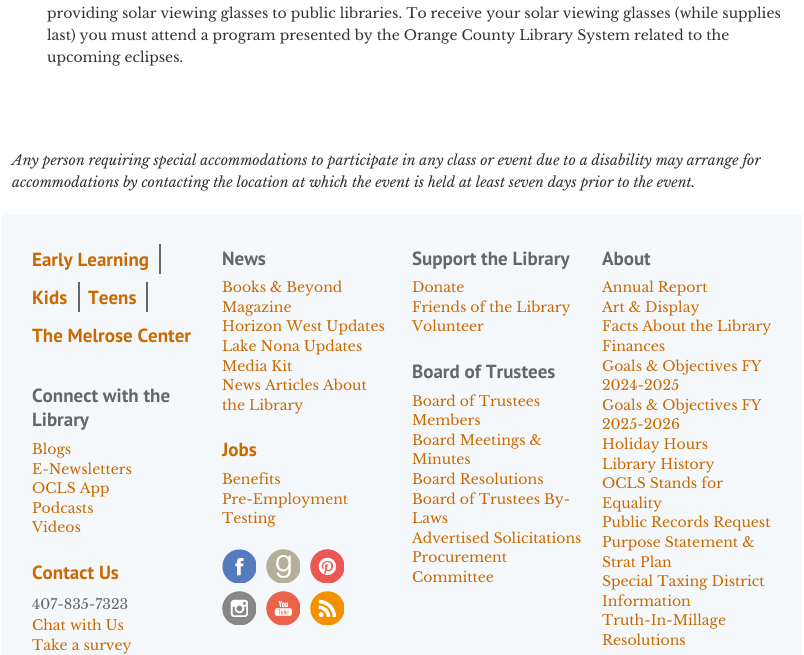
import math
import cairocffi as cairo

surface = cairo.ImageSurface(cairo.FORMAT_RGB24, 804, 655)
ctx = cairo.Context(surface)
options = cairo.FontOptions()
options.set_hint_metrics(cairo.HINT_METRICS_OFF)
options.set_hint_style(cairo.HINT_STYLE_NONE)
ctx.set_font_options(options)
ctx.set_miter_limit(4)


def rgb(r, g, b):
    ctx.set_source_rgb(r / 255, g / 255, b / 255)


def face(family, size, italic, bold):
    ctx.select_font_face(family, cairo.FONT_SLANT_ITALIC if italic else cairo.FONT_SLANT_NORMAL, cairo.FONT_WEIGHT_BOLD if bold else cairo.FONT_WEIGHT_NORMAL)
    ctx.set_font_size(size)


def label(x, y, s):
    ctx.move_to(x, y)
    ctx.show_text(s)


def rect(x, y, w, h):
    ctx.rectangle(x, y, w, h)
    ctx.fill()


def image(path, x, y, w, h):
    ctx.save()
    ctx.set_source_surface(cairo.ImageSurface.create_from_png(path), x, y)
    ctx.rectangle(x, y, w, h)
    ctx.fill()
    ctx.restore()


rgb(255, 255, 255)
ctx.paint()
face('Libre Baskerville', 14, 0, 0)
rgb(51, 51, 51)
label(47, 18, 'providing solar viewing glasses to public libraries. To receive your solar viewing glasses (while supplies')
label(47, 40, 'last) you must attend a program presented by the Orange County Library System related to the')
label(47, 62, 'upcoming eclipses.')
face('Libre Baskerville', 14, 1, 0)
label(12, 165, 'Any person requiring special accommodations to participate in any class or event due to a disability may arrange for')
label(12, 187, 'accommodations by contacting the location at which the event is held at least seven days prior to the event.')
rgb(245, 248, 251)
rect(2, 214, 800, 441)
rgb(102, 102, 102)
rect(159, 244, 2, 30)
face('PT Sans', 19, 0, 1)
rgb(201, 105, 0)
label(32, 266, 'Early Learning')
rgb(102, 102, 102)
rect(78, 282, 2, 30)
rgb(201, 105, 0)
label(32, 304, 'Kids')
rgb(102, 102, 102)
rect(146, 282, 2, 30)
rgb(201, 105, 0)
label(88, 304, 'Teens')
label(32, 342, 'The Melrose Center')
rgb(102, 102, 102)
label(32, 402, 'Connect with the')
label(32, 426, 'Library')
face('Libre Baskerville', 14, 0, 0)
rgb(201, 105, 0)
label(32, 454, 'Blogs')
label(32, 474, 'E-Newsletters')
label(32, 493, 'OCLS App')
label(32, 513, 'Podcasts')
label(32, 532, 'Videos')
face('PT Sans', 19, 0, 1)
label(32, 579, 'Contact Us')
face('Libre Baskerville', 14, 0, 0)
rgb(102, 102, 102)
label(32, 609, '407-835-7323')
rgb(201, 105, 0)
label(32, 630, 'Chat with Us')
label(32, 650, 'Take a survey')
face('PT Sans', 19, 0, 1)
rgb(102, 102, 102)
label(222, 265, 'News')
face('Libre Baskerville', 14, 0, 0)
rgb(201, 105, 0)
label(222, 292, 'Books & Beyond')
label(222, 312, 'Magazine')
label(222, 331, 'Horizon West Updates')
label(222, 351, 'Lake Nona Updates')
label(222, 371, 'Media Kit')
label(222, 390, 'News Articles About')
label(222, 410, 'the Library')
face('PT Sans', 19, 0, 1)
label(222, 456, 'Jobs')
face('Libre Baskerville', 14, 0, 0)
label(222, 484, 'Benefits')
label(222, 504, 'Pre-Employment')
label(222, 523, 'Testing')
image('image0.png', 222, 549, 34, 34)
image('image1.png', 266, 549, 34, 34)
image('image2.png', 310, 549, 34, 34)
image('image3.png', 222, 591, 34, 34)
image('image4.png', 266, 591, 34, 34)
image('image5.png', 310, 591, 34, 34)
face('PT Sans', 19, 0, 1)
rgb(102, 102, 102)
label(412, 265, 'Support the Library')
face('Libre Baskerville', 14, 0, 0)
rgb(201, 105, 0)
label(412, 292, 'Donate')
label(412, 312, 'Friends of the Library')
label(412, 331, 'Volunteer')
face('PT Sans', 19, 0, 1)
rgb(102, 102, 102)
label(412, 378, 'Board of Trustees')
face('Libre Baskerville', 14, 0, 0)
rgb(201, 105, 0)
label(412, 406, 'Board of Trustees')
label(412, 425, 'Members')
label(412, 445, 'Board Meetings &')
label(412, 464, 'Minutes')
label(412, 484, 'Board Resolutions')
label(412, 504, 'Board of Trustees By-')
label(412, 523, 'Laws')
label(412, 543, 'Advertised Solicitations')
label(412, 562, 'Procurement')
label(412, 582, 'Committee')
face('PT Sans', 19, 0, 1)
rgb(102, 102, 102)
label(602, 265, 'About')
face('Libre Baskerville', 14, 0, 0)
rgb(201, 105, 0)
label(602, 292, 'Annual Report')
label(602, 312, 'Art & Display')
label(602, 331, 'Facts About the Library')
label(602, 351, 'Finances')
label(602, 371, 'Goals & Objectives FY')
label(602, 390, '2024-2025')
label(602, 410, 'Goals & Objectives FY')
label(602, 429, '2025-2026')
label(602, 449, 'Holiday Hours')
label(602, 469, 'Library History')
label(602, 488, 'OCLS Stands for')
label(602, 508, 'Equality')
label(602, 527, 'Public Records Request')
label(602, 547, 'Purpose Statement &')
label(602, 567, 'Strat Plan')
label(602, 586, 'Special Taxing District')
label(602, 606, 'Information')
label(602, 625, 'Truth-In-Millage')
label(602, 645, 'Resolutions')
surface.write_to_png('render.png')
